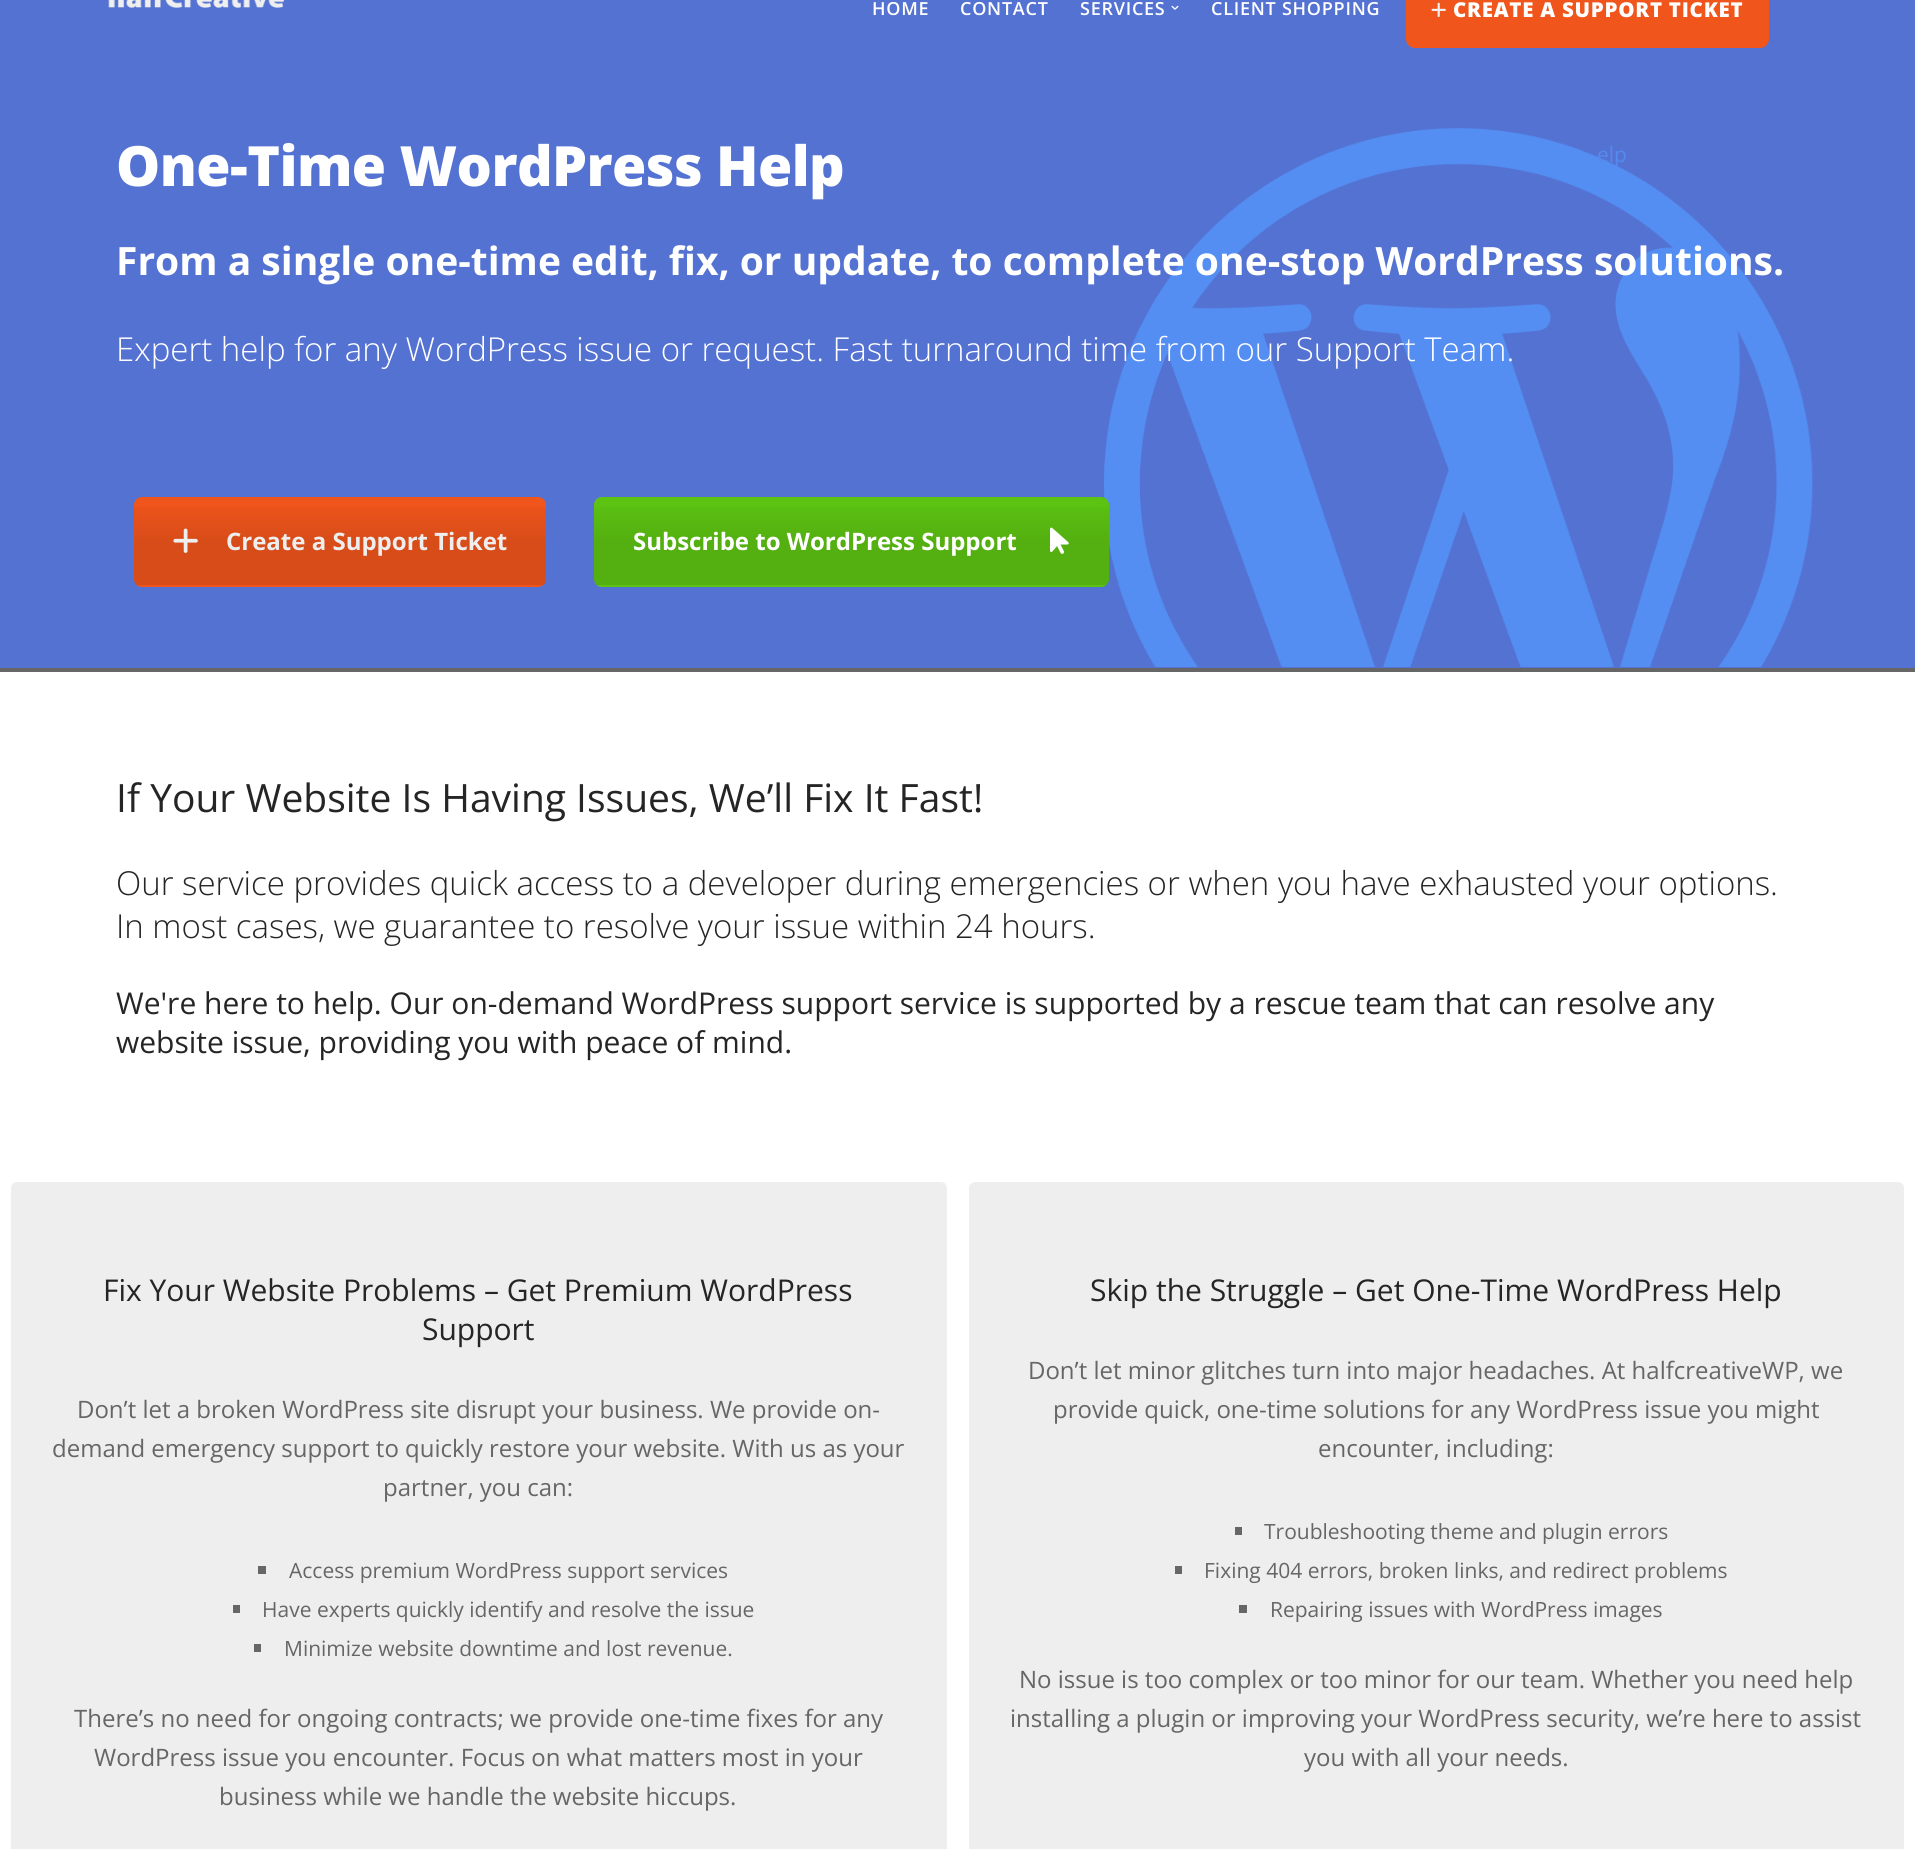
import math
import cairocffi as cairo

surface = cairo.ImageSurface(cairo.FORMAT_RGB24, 1915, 1849)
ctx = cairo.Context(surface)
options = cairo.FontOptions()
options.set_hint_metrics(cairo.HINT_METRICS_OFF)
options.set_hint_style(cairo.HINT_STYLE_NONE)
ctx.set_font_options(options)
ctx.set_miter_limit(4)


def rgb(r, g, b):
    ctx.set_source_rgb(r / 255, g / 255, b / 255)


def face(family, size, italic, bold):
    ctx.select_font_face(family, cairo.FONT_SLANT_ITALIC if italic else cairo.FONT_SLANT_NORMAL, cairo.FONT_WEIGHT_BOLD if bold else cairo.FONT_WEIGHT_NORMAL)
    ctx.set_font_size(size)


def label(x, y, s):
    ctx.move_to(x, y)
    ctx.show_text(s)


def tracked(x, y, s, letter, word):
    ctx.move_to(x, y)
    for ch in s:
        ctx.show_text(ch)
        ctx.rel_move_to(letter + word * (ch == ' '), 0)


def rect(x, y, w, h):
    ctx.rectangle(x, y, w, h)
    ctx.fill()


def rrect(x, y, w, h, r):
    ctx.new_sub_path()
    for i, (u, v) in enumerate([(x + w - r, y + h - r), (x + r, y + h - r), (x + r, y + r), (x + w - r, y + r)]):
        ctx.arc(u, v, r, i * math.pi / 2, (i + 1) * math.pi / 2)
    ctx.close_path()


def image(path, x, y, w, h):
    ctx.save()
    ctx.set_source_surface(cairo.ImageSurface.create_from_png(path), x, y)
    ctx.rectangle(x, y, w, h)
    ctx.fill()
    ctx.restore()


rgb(255, 255, 255)
ctx.paint()
rgb(84, 114, 210)
rect(0, 0, 1915, 668)
image('image0.png', 108, 0, 176, 8)
face('Open Sans SemiBold', 18, 0, 0)
rgb(255, 255, 255)
tracked(872, 15, 'HOME', 0.75, 0)
tracked(960, 15, 'CONTACT', 0.75, 0)
tracked(1080, 15, 'SERVICES', 0.75, 0)
image('image1.png', 1171, 5, 8, 5)
image('image3.png', 1104, 128, 709, 539)
face('Open Sans', 21, 0, 0)
rgb(84, 138, 237)
label(1597, 162, 'elp')
face('Open Sans SemiBold', 18, 0, 0)
rgb(255, 255, 255)
tracked(1211, 15, 'CLIENT SHOPPING', 0.75, 0)
rgb(240, 85, 28)
rrect(1406, -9, 363, 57, 9)
ctx.fill()
image('image2.png', 1431, 2, 15, 15)
face('Open Sans ExtraBold', 20.5, 0, 0)
rgb(255, 255, 255)
tracked(1453, 17, 'CREATE A SUPPORT TICKET', 0.75, 0)
rgb(102, 102, 102)
rect(0, 668, 1915, 4)
face('Open Sans ExtraBold', 55.5, 0, 0)
rgb(255, 255, 255)
tracked(116, 186, 'One-Time WordPress Help', -0.55, 0)
face('Open Sans', 39, 0, 1)
label(116, 275, 'From a single one-time edit, fix, or update, to complete one-stop WordPress solutions.')
face('Open Sans Light', 33, 0, 0)
label(116, 361, 'Expert help for any WordPress issue or request. Fast turnaround time from our Support Team.')
rgb(240, 85, 28)
rrect(134, 497, 412, 90, 8)
ctx.fill()
ctx.save()
rrect(134, 497, 412, 90, 8)
ctx.clip()
gradient = cairo.LinearGradient(545, 498, 545, 585)
gradient.add_color_stop_rgba(0, 0, 0, 0, 0)
gradient.add_color_stop_rgba(0.5, 0, 0, 0, 0.1)
gradient.add_color_stop_rgba(1, 0, 0, 0, 0.1)
ctx.set_source(gradient)
rect(134, 507, 412, 78)
ctx.restore()
image('image4.png', 173, 528, 25, 25)
face('Open Sans', 24, 0, 1)
rgb(238, 238, 238)
label(226, 550, 'Create a Support Ticket')
rgb(93, 195, 18)
rrect(594, 497, 515, 90, 8)
ctx.fill()
ctx.save()
rrect(594, 497, 515, 90, 8)
ctx.clip()
gradient = cairo.LinearGradient(1107, 498, 1107, 585)
gradient.add_color_stop_rgba(0, 0, 0, 0, 0)
gradient.add_color_stop_rgba(0.5, 0, 0, 0, 0.1)
gradient.add_color_stop_rgba(1, 0, 0, 0, 0.1)
ctx.set_source(gradient)
rect(594, 507, 515, 78)
ctx.restore()
rgb(255, 255, 255)
label(633, 550, 'Subscribe to WordPress Support')
image('image5.png', 1050, 527, 19, 27)
face('Open Sans', 39, 0, 0)
rgb(37, 37, 37)
label(116, 812, 'If Your Website Is Having Issues, We’ll Fix It Fast!')
face('Open Sans Light', 33, 0, 0)
label(116, 895, 'Our service provides quick access to a developer during emergencies or when you have exhausted your options.')
label(116, 938, 'In most cases, we guarantee to resolve your issue within 24 hours.')
face('Open Sans', 30, 0, 0)
label(116, 1014, 'We\'re here to help. Our on-demand WordPress support service is supported by a rescue team that can resolve any')
label(116, 1053, 'website issue, providing you with peace of mind.')
rgb(238, 238, 238)
rrect(11, 1182, 936, 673, 6)
ctx.fill()
rgb(37, 37, 37)
label(103, 1301, 'Fix Your Website Problems – Get Premium WordPress')
label(422, 1340, 'Support')
face('Open Sans', 24, 0, 0)
rgb(102, 102, 102)
label(77, 1418, 'Don’t let a broken WordPress site disrupt your business. We provide on-')
label(52, 1457, 'demand emergency support to quickly restore your website. With us as your')
label(383, 1496, 'partner, you can:')
rect(258, 1566, 8, 8)
face('Open Sans', 21, 0, 0)
label(289, 1578, 'Access premium WordPress support services')
rect(233, 1605, 7, 8)
label(262, 1617, 'Have experts quickly identify and resolve the issue')
rect(254, 1644, 7, 8)
label(284, 1656, 'Minimize website downtime and lost revenue.')
face('Open Sans', 24, 0, 0)
label(74, 1727, 'There’s no need for ongoing contracts; we provide one-time fixes for any')
label(94, 1766, 'WordPress issue you encounter. Focus on what matters most in your')
label(219, 1805, 'business while we handle the website hiccups.')
rgb(238, 238, 238)
rrect(969, 1182, 935, 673, 6)
ctx.fill()
face('Open Sans', 30, 0, 0)
rgb(37, 37, 37)
label(1090, 1301, 'Skip the Struggle – Get One-Time WordPress Help')
face('Open Sans', 24, 0, 0)
rgb(102, 102, 102)
label(1028, 1379, 'Don’t let minor glitches turn into major headaches. At halfcreativeWP, we')
label(1053, 1418, 'provide quick, one-time solutions for any WordPress issue you might')
label(1318, 1457, 'encounter, including:')
rect(1235, 1527, 7, 8)
face('Open Sans', 21, 0, 0)
label(1264, 1539, 'Troubleshooting theme and plugin errors')
rect(1175, 1566, 7, 8)
label(1204, 1578, 'Fixing 404 errors, broken links, and redirect problems')
rect(1239, 1605, 8, 8)
label(1270, 1617, 'Repairing issues with WordPress images')
face('Open Sans', 24, 0, 0)
label(1019, 1688, 'No issue is too complex or too minor for our team. Whether you need help')
label(1010, 1727, 'installing a plugin or improving your WordPress security, we’re here to assist')
label(1304, 1766, 'you with all your needs.')
surface.write_to_png('render.png')
